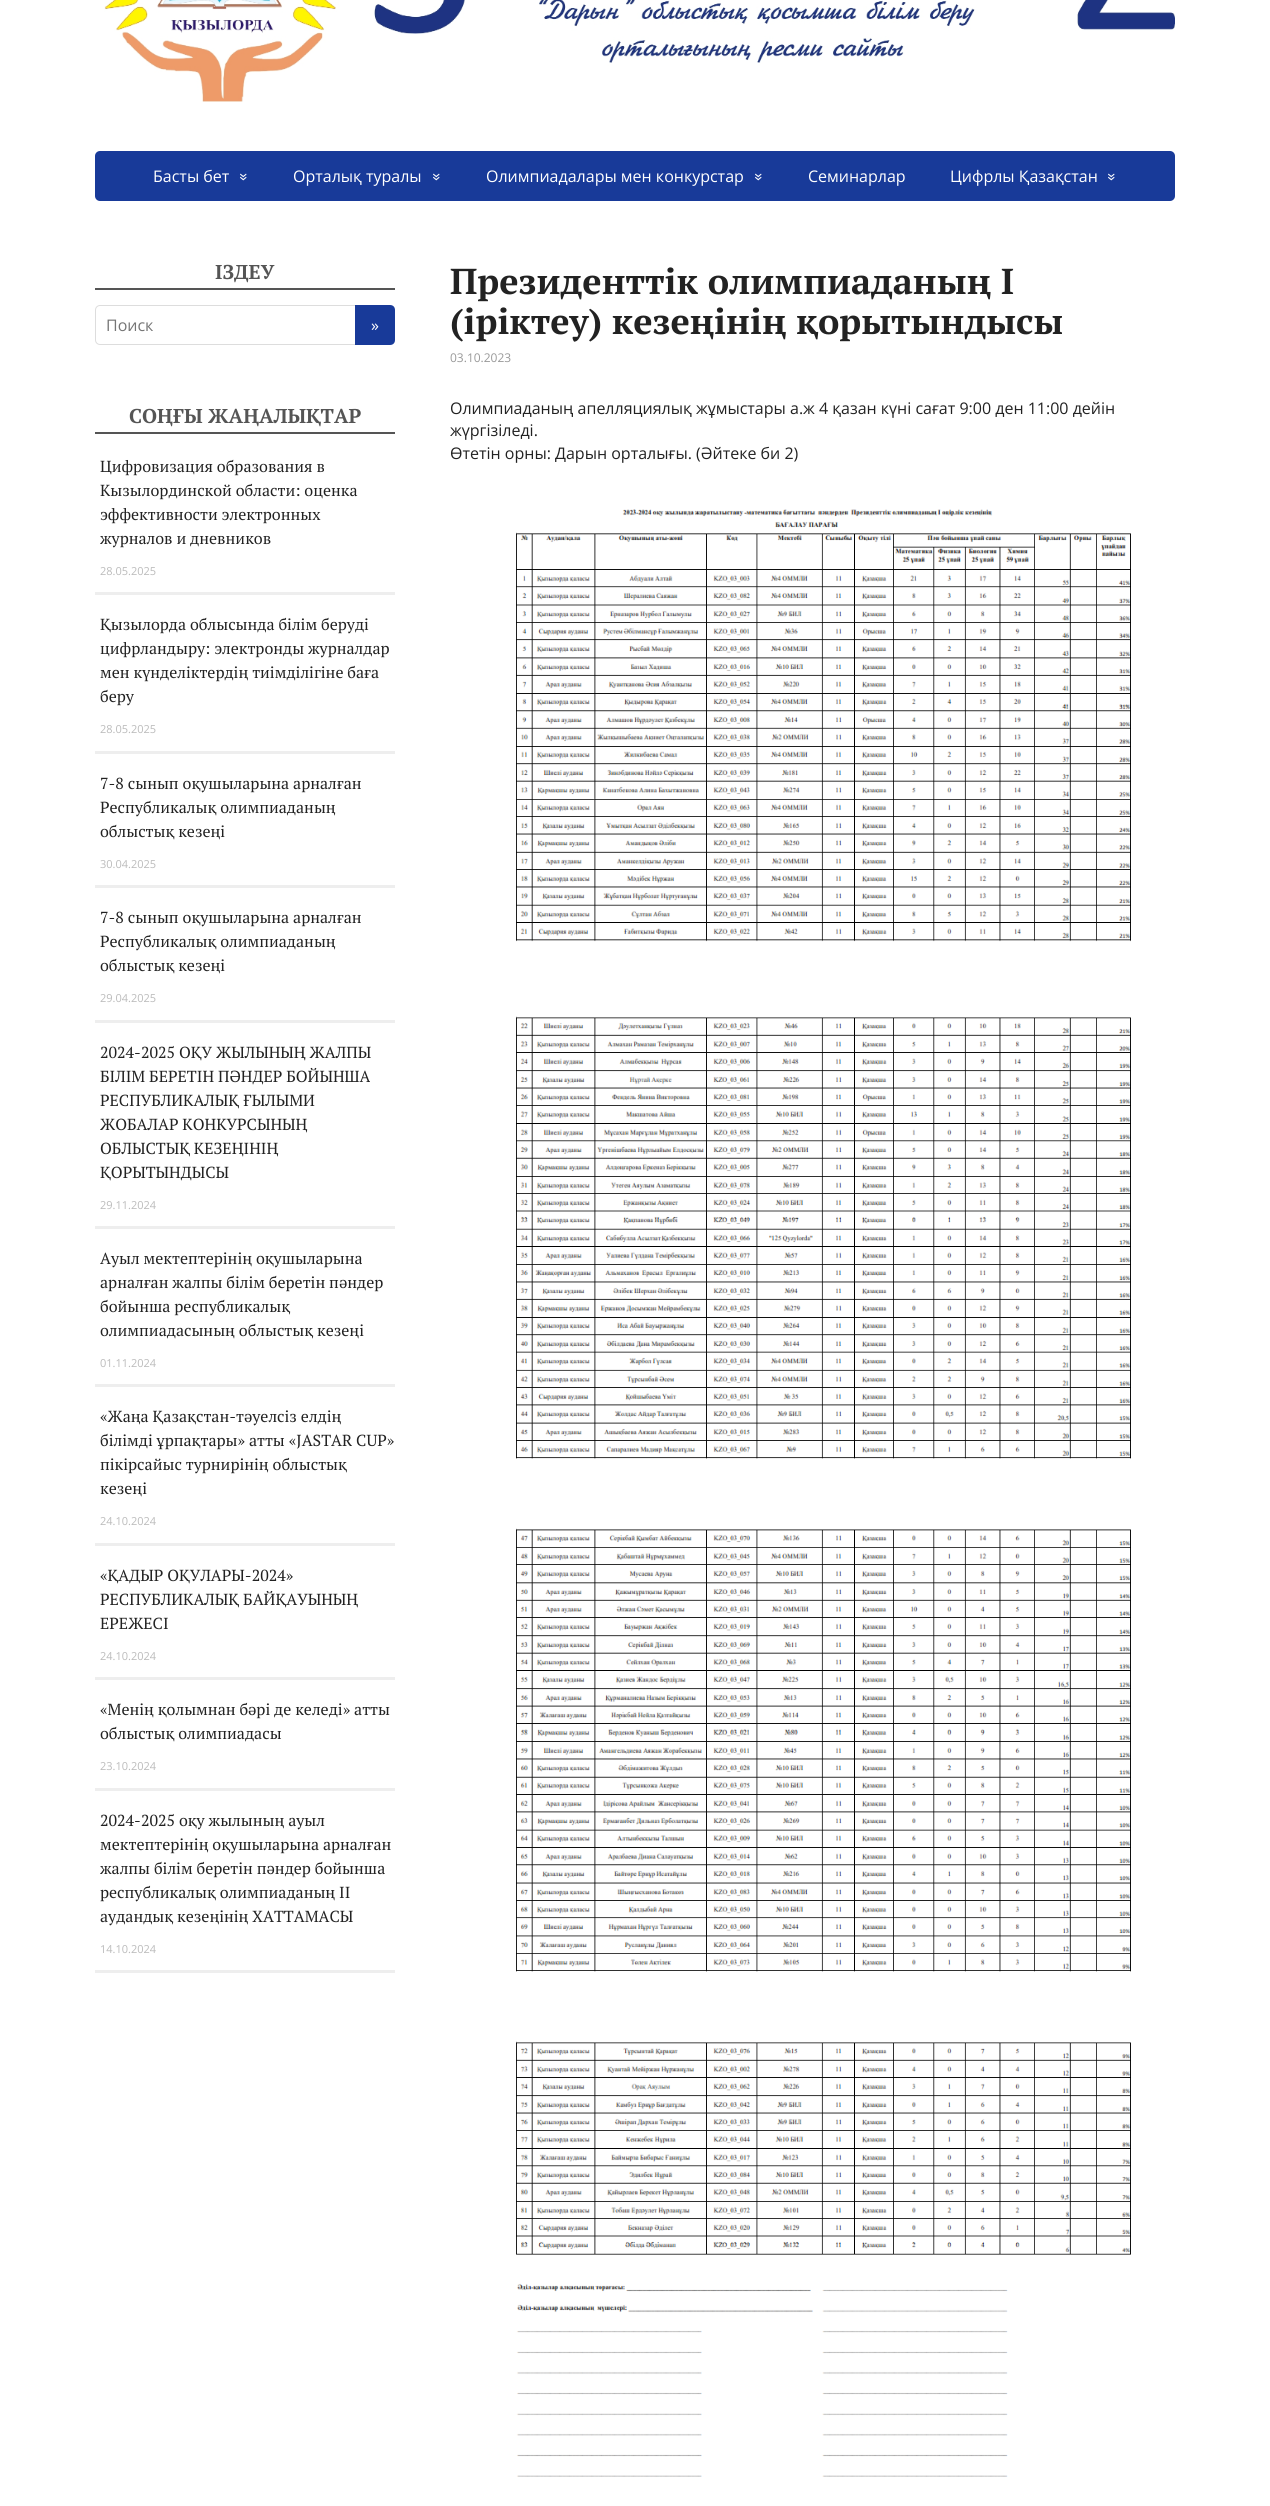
import math
import cairocffi as cairo

surface = cairo.ImageSurface(cairo.FORMAT_RGB24, 1270, 2506)
ctx = cairo.Context(surface)
options = cairo.FontOptions()
options.set_hint_metrics(cairo.HINT_METRICS_OFF)
options.set_hint_style(cairo.HINT_STYLE_NONE)
ctx.set_font_options(options)
ctx.set_miter_limit(4)


def rgb(r, g, b):
    ctx.set_source_rgb(r / 255, g / 255, b / 255)


def face(family, size, italic, bold):
    ctx.select_font_face(family, cairo.FONT_SLANT_ITALIC if italic else cairo.FONT_SLANT_NORMAL, cairo.FONT_WEIGHT_BOLD if bold else cairo.FONT_WEIGHT_NORMAL)
    ctx.set_font_size(size)


def label(x, y, s):
    ctx.move_to(x, y)
    ctx.show_text(s)


def rect(x, y, w, h):
    ctx.rectangle(x, y, w, h)
    ctx.fill()


def rrect(x, y, w, h, r):
    ctx.new_sub_path()
    for i, (u, v) in enumerate([(x + w - r, y + h - r), (x + r, y + h - r), (x + r, y + r), (x + w - r, y + r)]):
        ctx.arc(u, v, r, i * math.pi / 2, (i + 1) * math.pi / 2)
    ctx.close_path()


def image(path, x, y, w, h):
    ctx.save()
    ctx.set_source_surface(cairo.ImageSurface.create_from_png(path), x, y)
    ctx.rectangle(x, y, w, h)
    ctx.fill()
    ctx.restore()


rgb(255, 255, 255)
ctx.paint()
image('image0.png', 104, 0, 1071, 102)
rgb(24, 58, 153)
rrect(95, 151, 1080, 50, 5)
ctx.fill()
face('Open Sans', 16, 0, 0)
rgb(255, 255, 255)
label(153, 182, 'Басты бет')
ctx.save()
ctx.translate(239, 173)
ctx.rotate(90 * math.pi / 180)
label(0, 0, '»')
ctx.restore()
label(293, 182, 'Орталық туралы')
ctx.save()
ctx.translate(432, 173)
ctx.rotate(90 * math.pi / 180)
label(0, 0, '»')
ctx.restore()
label(486, 182, 'Олимпиадалары мен конкурстар')
ctx.save()
ctx.translate(754, 173)
ctx.rotate(90 * math.pi / 180)
label(0, 0, '»')
ctx.restore()
label(808, 182, 'Семинарлар')
label(950, 182, 'Цифрлы Қазақстан')
ctx.save()
ctx.translate(1107, 173)
ctx.rotate(90 * math.pi / 180)
label(0, 0, '»')
ctx.restore()
rgb(85, 85, 85)
rect(95, 288, 300, 2)
face('PT Serif', 20, 0, 1)
label(215, 279, 'ІЗДЕУ')
rrect(95.5, 305.5, 291, 39, 4.5)
rgb(221, 221, 221)
ctx.set_line_width(1)
ctx.stroke()
face('Open Sans', 16, 0, 0)
rgb(117, 117, 117)
label(106, 331, 'Поиск')
rgb(24, 58, 153)
ctx.new_path()
ctx.move_to(355, 305)
ctx.line_to(390, 305)
ctx.curve_to(393, 305, 395, 307, 395, 310)
ctx.line_to(395, 340)
ctx.curve_to(395, 343, 393, 345, 390, 345)
ctx.line_to(355, 345)
ctx.close_path()
ctx.fill()
rgb(255, 255, 255)
label(371, 331, '»')
rgb(85, 85, 85)
rect(95, 432, 300, 2)
face('PT Serif', 20, 0, 1)
label(129, 423, 'СОҢҒЫ ЖАҢАЛЫҚТАР')
rgb(238, 238, 238)
rect(95, 592, 300, 3)
face('PT Serif', 16, 0, 0)
rgb(34, 34, 34)
label(100, 472, 'Цифровизация образования в')
label(100, 496, 'Кызылординской области: оценка')
label(100, 520, 'эффективности электронных')
label(100, 544, 'журналов и дневников')
face('Open Sans', 11, 0, 0)
rgb(187, 187, 187)
label(100, 575, '28.05.2025')
rgb(238, 238, 238)
rect(95, 751, 300, 3)
face('PT Serif', 16, 0, 0)
rgb(34, 34, 34)
label(100, 630, 'Қызылорда облысында білім беруді')
label(100, 654, 'цифрландыру: электронды журналдар')
label(100, 678, 'мен күнделіктердің тиімділігіне баға')
label(100, 702, 'беру')
face('Open Sans', 11, 0, 0)
rgb(187, 187, 187)
label(100, 733, '28.05.2025')
rgb(238, 238, 238)
rect(95, 885, 300, 3)
face('PT Serif', 16, 0, 0)
rgb(34, 34, 34)
label(100, 789, '7-8 сынып оқушыларына арналған')
label(100, 813, 'Республикалық олимпиаданың')
label(100, 837, 'облыстық кезеңі')
face('Open Sans', 11, 0, 0)
rgb(187, 187, 187)
label(100, 868, '30.04.2025')
rgb(238, 238, 238)
rect(95, 1020, 300, 3)
face('PT Serif', 16, 0, 0)
rgb(34, 34, 34)
label(100, 923, '7-8 сынып оқушыларына арналған')
label(100, 947, 'Республикалық олимпиаданың')
label(100, 971, 'облыстық кезеңі')
face('Open Sans', 11, 0, 0)
rgb(187, 187, 187)
label(100, 1002, '29.04.2025')
rgb(238, 238, 238)
rect(95, 1226, 300, 3)
face('PT Serif', 16, 0, 0)
rgb(34, 34, 34)
label(100, 1058, '2024-2025 ОҚУ ЖЫЛЫНЫҢ ЖАЛПЫ')
label(100, 1082, 'БІЛІМ БЕРЕТІН ПӘНДЕР БОЙЫНША')
label(100, 1106, 'РЕСПУБЛИКАЛЫҚ ҒЫЛЫМИ')
label(100, 1130, 'ЖОБАЛАР КОНКУРСЫНЫҢ')
label(100, 1154, 'ОБЛЫСТЫҚ КЕЗЕҢІНІҢ')
label(100, 1178, 'ҚОРЫТЫНДЫСЫ')
face('Open Sans', 11, 0, 0)
rgb(187, 187, 187)
label(100, 1209, '29.11.2024')
rgb(238, 238, 238)
rect(95, 1384, 300, 3)
face('PT Serif', 16, 0, 0)
rgb(34, 34, 34)
label(100, 1264, 'Ауыл мектептерінің оқушыларына')
label(100, 1288, 'арналған жалпы білім беретін пәндер')
label(100, 1312, 'бойынша республикалық')
label(100, 1336, 'олимпиадасының облыстық кезеңі')
face('Open Sans', 11, 0, 0)
rgb(187, 187, 187)
label(100, 1367, '01.11.2024')
rgb(238, 238, 238)
rect(95, 1543, 300, 3)
face('PT Serif', 16, 0, 0)
rgb(34, 34, 34)
label(100, 1422, '«Жаңа Қазақстан-тәуелсіз елдің')
label(100, 1446, 'білімді ұрпақтары» атты «JASTAR CUP»')
label(100, 1470, 'пікірсайыс турнирінің облыстық')
label(100, 1494, 'кезеңі')
face('Open Sans', 11, 0, 0)
rgb(187, 187, 187)
label(100, 1525, '24.10.2024')
rgb(238, 238, 238)
rect(95, 1677, 300, 3)
face('PT Serif', 16, 0, 0)
rgb(34, 34, 34)
label(100, 1581, '«ҚАДЫР ОҚУЛАРЫ-2024»')
label(100, 1605, 'РЕСПУБЛИКАЛЫҚ БАЙҚАУЫНЫҢ')
label(100, 1629, 'ЕРЕЖЕСІ')
face('Open Sans', 11, 0, 0)
rgb(187, 187, 187)
label(100, 1660, '24.10.2024')
rgb(238, 238, 238)
rect(95, 1788, 300, 3)
face('PT Serif', 16, 0, 0)
rgb(34, 34, 34)
label(100, 1715, '«Менің қолымнан бәрі де келеді» атты')
label(100, 1739, 'облыстық олимпиадасы')
face('Open Sans', 11, 0, 0)
rgb(187, 187, 187)
label(100, 1770, '23.10.2024')
rgb(238, 238, 238)
rect(95, 1970, 300, 3)
face('PT Serif', 16, 0, 0)
rgb(34, 34, 34)
label(100, 1826, '2024-2025 оқу жылының ауыл')
label(100, 1850, 'мектептерінің оқушыларына арналған')
label(100, 1874, 'жалпы білім беретін пәндер бойынша')
label(100, 1898, 'республикалық олимпиаданың ІІ')
label(100, 1922, 'аудандық кезеңінің ХАТТАМАСЫ')
face('Open Sans', 11, 0, 0)
rgb(187, 187, 187)
label(100, 1953, '14.10.2024')
face('PT Serif', 36, 0, 1)
rgb(34, 34, 34)
label(450, 294, 'Президенттік олимпиаданың І')
label(450, 334, '(іріктеу) кезеңінің қорытындысы')
face('Open Sans', 12, 0, 0)
rgb(153, 153, 153)
label(450, 362, '03.10.2023')
face('Open Sans', 16, 0, 0)
rgb(34, 34, 34)
label(450, 414, 'Олимпиаданың апелляциялық жұмыстары а.ж 4 қазан күні сағат 9:00 ден 11:00 дейін')
label(450, 436, 'жүргізіледі.')
label(450, 459, 'Өтетін орны: Дарын орталығы. (Әйтеке би 2)')
image('image1.png', 516, 509, 615, 433)
image('image2.png', 516, 1016, 615, 443)
image('image3.png', 516, 1528, 615, 444)
image('image4.png', 516, 2041, 615, 436)
surface.write_to_png('render.png')
